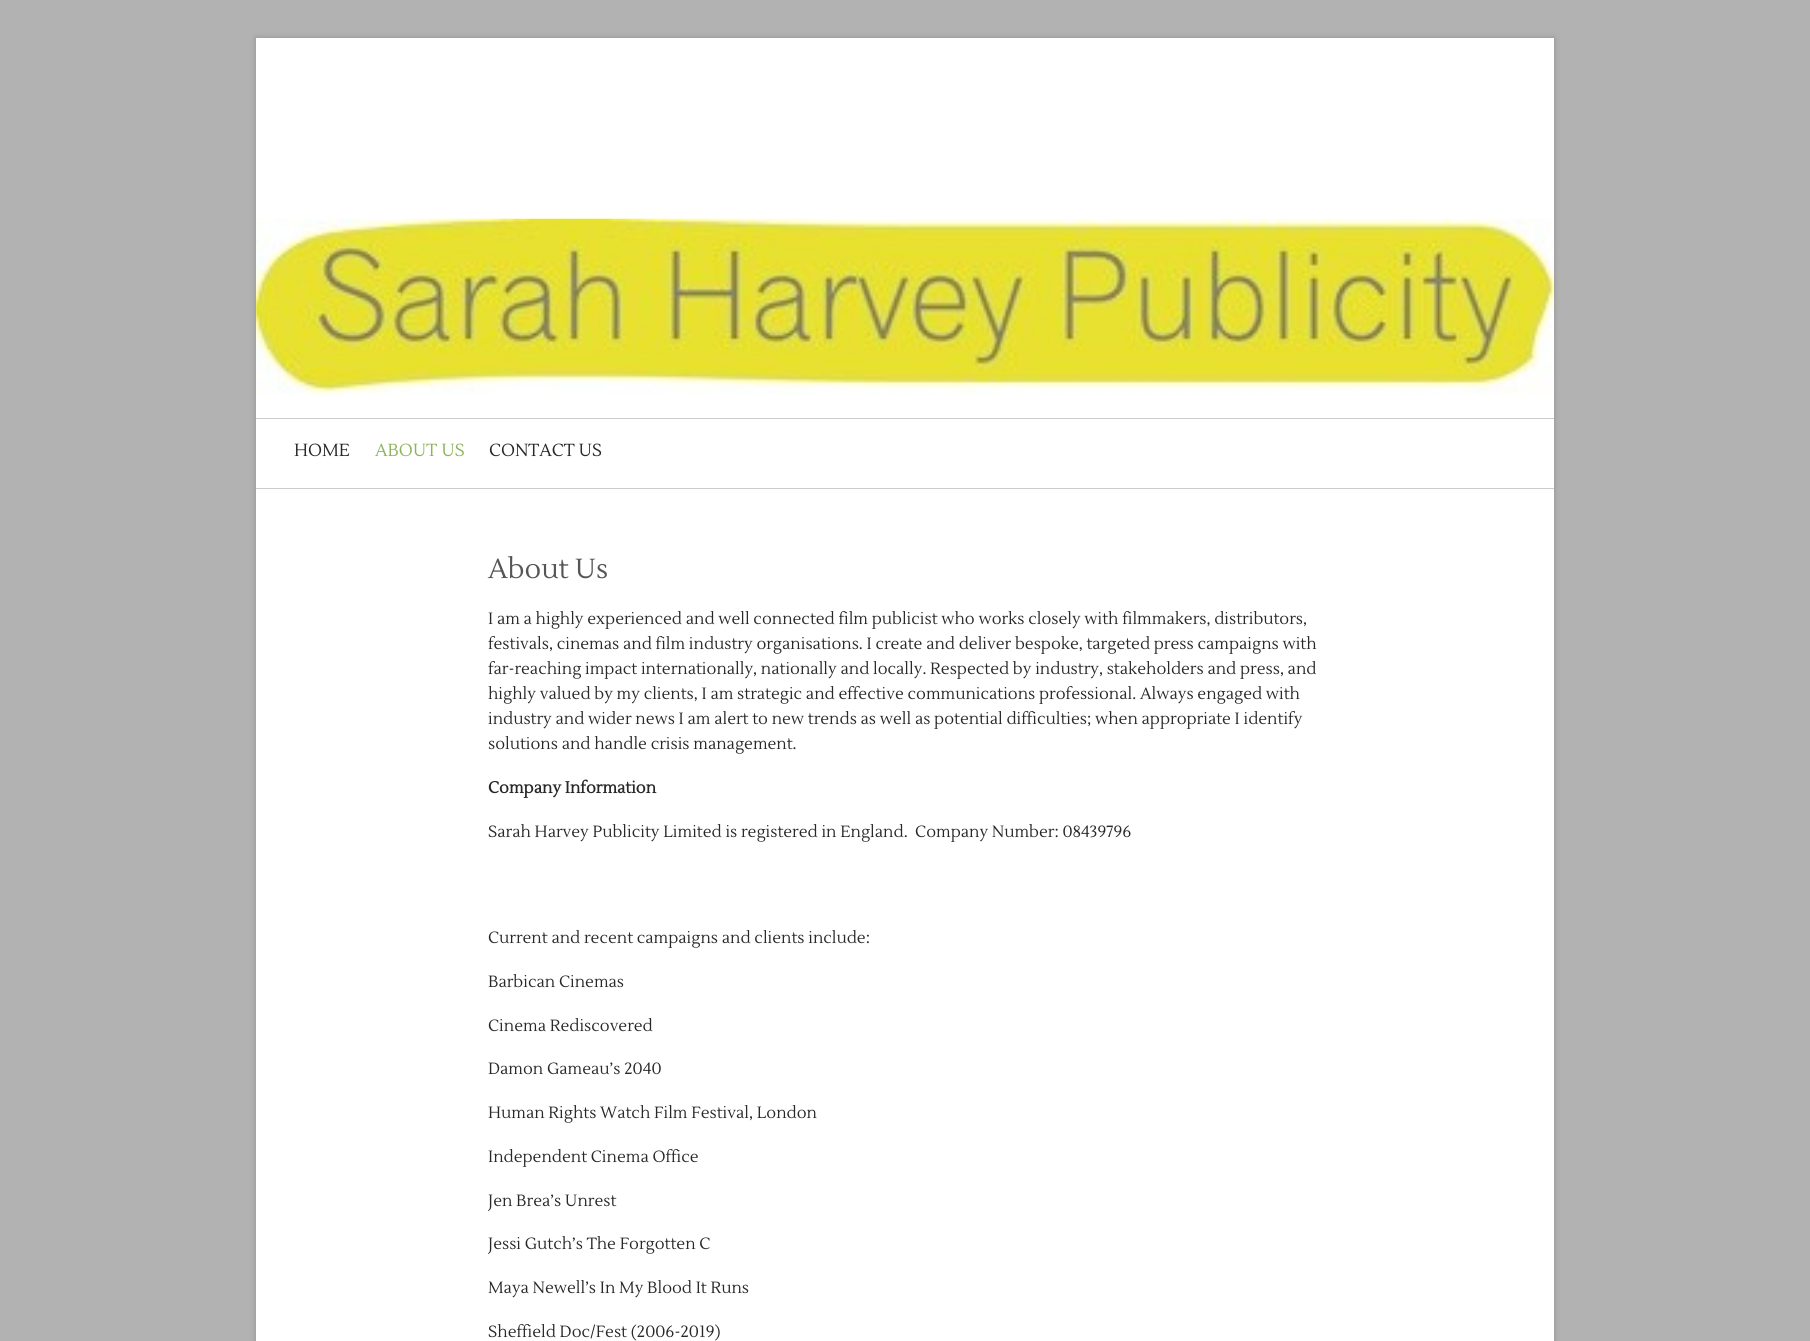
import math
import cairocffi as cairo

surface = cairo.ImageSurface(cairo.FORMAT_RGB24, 1810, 1341)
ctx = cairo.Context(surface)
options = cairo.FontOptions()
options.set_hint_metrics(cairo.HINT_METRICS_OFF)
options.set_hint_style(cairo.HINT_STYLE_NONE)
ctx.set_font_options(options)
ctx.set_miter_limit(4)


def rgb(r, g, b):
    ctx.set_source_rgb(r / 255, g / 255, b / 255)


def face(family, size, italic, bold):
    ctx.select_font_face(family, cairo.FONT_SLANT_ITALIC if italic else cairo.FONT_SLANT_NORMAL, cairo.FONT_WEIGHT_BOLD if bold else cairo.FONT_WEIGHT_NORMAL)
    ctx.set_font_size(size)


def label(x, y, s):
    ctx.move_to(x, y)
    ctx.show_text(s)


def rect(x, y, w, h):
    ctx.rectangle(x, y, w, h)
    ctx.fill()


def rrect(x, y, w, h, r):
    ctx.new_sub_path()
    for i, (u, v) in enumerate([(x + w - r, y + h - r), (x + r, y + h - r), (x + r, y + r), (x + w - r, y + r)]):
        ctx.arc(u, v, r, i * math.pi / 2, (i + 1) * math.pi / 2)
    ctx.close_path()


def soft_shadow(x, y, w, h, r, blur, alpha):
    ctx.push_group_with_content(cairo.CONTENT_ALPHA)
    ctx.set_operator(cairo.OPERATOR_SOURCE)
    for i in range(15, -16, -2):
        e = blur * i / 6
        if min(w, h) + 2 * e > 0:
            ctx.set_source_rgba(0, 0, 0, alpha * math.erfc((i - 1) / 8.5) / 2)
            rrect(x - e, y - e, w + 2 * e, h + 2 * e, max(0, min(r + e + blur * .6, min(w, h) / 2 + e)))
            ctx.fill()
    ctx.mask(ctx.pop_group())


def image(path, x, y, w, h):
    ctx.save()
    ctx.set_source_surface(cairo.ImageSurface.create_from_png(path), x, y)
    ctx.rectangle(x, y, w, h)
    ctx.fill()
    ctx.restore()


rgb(178, 178, 178)
ctx.paint()
rgb(0, 0, 0)
soft_shadow(256, 38, 1298, 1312, 0, 3, 0.2)
rgb(255, 255, 255)
rect(256, 38, 1298, 1303)
image('image0.png', 256, 218, 1298, 178)
rgb(204, 204, 204)
rect(256, 418, 1298, 1)
rect(256, 488, 1298, 1)
face('Lustria', 17.5, 0, 0)
rgb(40, 40, 40)
label(294, 456, 'HOME')
rgb(141, 180, 92)
label(375, 456, 'ABOUT US')
rgb(40, 40, 40)
label(489, 456, 'CONTACT US')
face('Lustria', 27.5, 0, 0)
rgb(85, 85, 85)
label(488, 578, 'About Us')
face('Lustria', 16.25, 0, 0)
rgb(40, 40, 40)
label(488, 624, 'I am a highly experienced and well connected film publicist who works closely with filmmakers, distributors,')
label(488, 649, 'festivals, cinemas and film industry organisations. I create and deliver bespoke, targeted press campaigns with')
label(488, 674, 'far-reaching impact internationally, nationally and locally. Respected by industry, stakeholders and press, and')
label(488, 699, 'highly valued by my clients, I am strategic and effective communications professional. Always engaged with')
label(488, 724, 'industry and wider news I am alert to new trends as well as potential difficulties; when appropriate I identify')
label(488, 749, 'solutions and handle crisis management.')
face('Lustria', 16.25, 0, 1)
label(488, 793, 'Company Information')
face('Lustria', 16.25, 0, 0)
label(488, 837, 'Sarah Harvey Publicity Limited is registered in England.  Company Number: 08439796')
label(488, 943, 'Current and recent campaigns and clients include:')
label(488, 987, 'Barbican Cinemas')
label(488, 1031, 'Cinema Rediscovered')
label(488, 1074, 'Damon Gameau’s 2040')
label(488, 1118, 'Human Rights Watch Film Festival, London')
label(488, 1162, 'Independent Cinema Office')
label(488, 1206, 'Jen Brea’s Unrest')
label(488, 1249, 'Jessi Gutch’s The Forgotten C')
label(488, 1293, 'Maya Newell’s In My Blood It Runs')
label(488, 1337, 'Sheffield Doc/Fest (2006-2019)')
surface.write_to_png('render.png')
